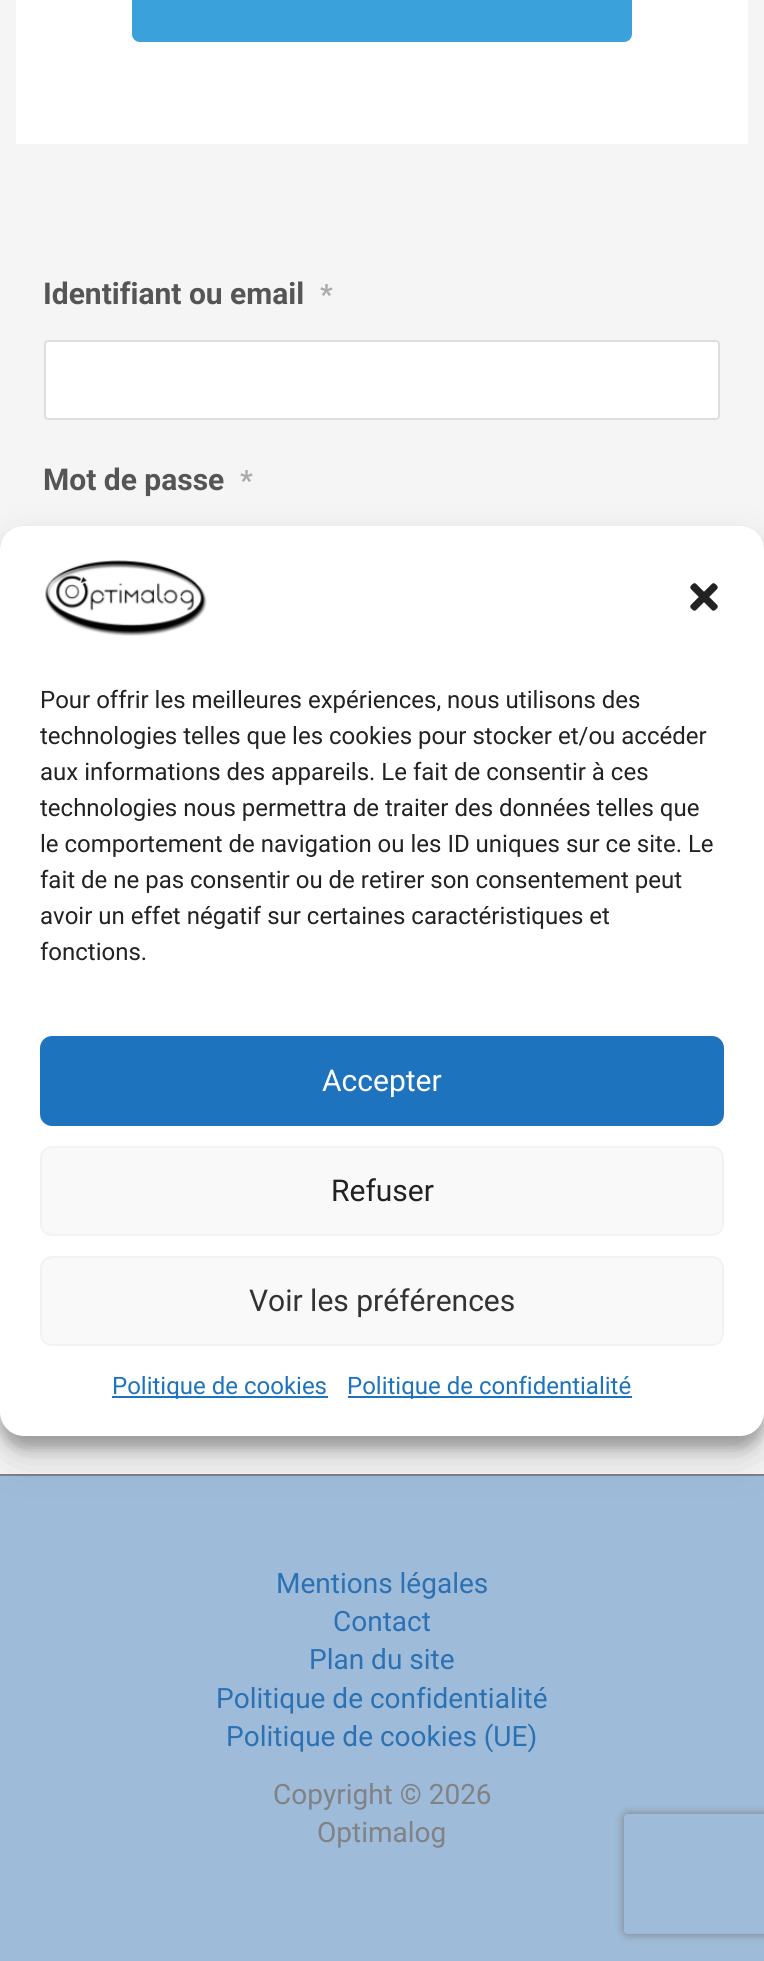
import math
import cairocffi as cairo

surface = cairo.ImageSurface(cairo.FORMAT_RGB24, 764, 1961)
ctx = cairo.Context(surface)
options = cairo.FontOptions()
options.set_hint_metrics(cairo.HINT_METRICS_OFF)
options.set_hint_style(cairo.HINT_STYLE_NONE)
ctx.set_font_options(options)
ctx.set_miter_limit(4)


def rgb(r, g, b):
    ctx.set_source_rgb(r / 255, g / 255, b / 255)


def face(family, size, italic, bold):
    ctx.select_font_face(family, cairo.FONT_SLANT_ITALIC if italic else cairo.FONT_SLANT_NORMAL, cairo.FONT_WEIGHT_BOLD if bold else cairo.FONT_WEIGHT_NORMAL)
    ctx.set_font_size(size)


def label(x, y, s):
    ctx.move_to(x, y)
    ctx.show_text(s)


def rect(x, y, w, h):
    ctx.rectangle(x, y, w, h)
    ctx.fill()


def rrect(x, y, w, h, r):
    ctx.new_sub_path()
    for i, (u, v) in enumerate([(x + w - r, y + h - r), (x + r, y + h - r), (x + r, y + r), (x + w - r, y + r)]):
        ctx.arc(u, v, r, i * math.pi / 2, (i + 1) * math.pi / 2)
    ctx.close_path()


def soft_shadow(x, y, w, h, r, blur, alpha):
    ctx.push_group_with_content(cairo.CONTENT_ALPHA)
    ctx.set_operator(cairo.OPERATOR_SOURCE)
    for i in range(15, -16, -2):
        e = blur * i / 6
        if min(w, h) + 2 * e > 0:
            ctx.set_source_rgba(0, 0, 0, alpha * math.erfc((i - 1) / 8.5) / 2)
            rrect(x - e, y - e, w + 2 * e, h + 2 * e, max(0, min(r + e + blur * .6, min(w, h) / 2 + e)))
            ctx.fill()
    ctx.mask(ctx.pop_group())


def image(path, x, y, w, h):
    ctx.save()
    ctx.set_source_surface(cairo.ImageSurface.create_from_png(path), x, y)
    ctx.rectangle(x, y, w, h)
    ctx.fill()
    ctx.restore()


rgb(245, 245, 245)
ctx.paint()
rgb(255, 255, 255)
rect(16, 0, 732, 144)
rgb(59, 161, 218)
rrect(132, -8, 500, 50, 8)
ctx.fill()
face('Roboto', 30, 0, 1)
rgb(85, 85, 85)
label(43, 304, 'Identifiant ou email')
face('Roboto', 28, 0, 1)
rgb(170, 170, 170)
label(320, 304, '*')
rgb(255, 255, 255)
rrect(45, 341, 674, 78, 3)
ctx.fill_preserve()
rgb(221, 221, 221)
ctx.stroke()
face('Roboto', 30, 0, 1)
rgb(85, 85, 85)
label(43, 490, 'Mot de passe')
face('Roboto', 28, 0, 1)
rgb(170, 170, 170)
label(240, 490, '*')
rgb(158, 188, 217)
rect(0, 1476, 764, 485)
rgb(128, 130, 133)
rect(0, 1474, 764, 2)
face('Roboto', 28, 0, 0)
rgb(43, 113, 179)
label(276, 1593, 'Mentions légales')
label(333, 1631, 'Contact')
label(309, 1669, 'Plan du site')
label(216, 1708, 'Politique de confidentialité')
label(226, 1746, 'Politique de cookies (UE)')
rgb(128, 130, 133)
label(273, 1804, 'Copyright © 2026')
label(317, 1842, 'Optimalog')
rgb(0, 0, 0)
soft_shadow(0, 538, 764, 910, 24, 6, 0.23)
soft_shadow(0, 546, 764, 910, 24, 20, 0.19)
rgb(255, 255, 255)
rrect(0, 526, 764, 910, 24)
ctx.fill()
image('image0.png', 45, 560, 162, 76)
image('image1.png', 690, 583, 28, 28)
face('Roboto', 24, 0, 0)
rgb(34, 34, 34)
label(40, 708, 'Pour offrir les meilleures expériences, nous utilisons des')
label(40, 744, 'technologies telles que les cookies pour stocker et/ou accéder')
label(40, 780, 'aux informations des appareils. Le fait de consentir à ces')
label(40, 816, 'technologies nous permettra de traiter des données telles que')
label(40, 852, 'le comportement de navigation ou les ID uniques sur ce site. Le')
label(40, 888, 'fait de ne pas consentir ou de retirer son consentement peut')
label(40, 924, 'avoir un effet négatif sur certaines caractéristiques et')
label(40, 960, 'fonctions.')
rgb(30, 115, 190)
rrect(41, 1037, 682, 88, 11)
ctx.fill_preserve()
ctx.stroke()
face('Roboto', 30, 0, 0)
rgb(255, 255, 255)
label(322, 1091, 'Accepter')
rgb(249, 249, 249)
rrect(41, 1147, 682, 88, 11)
ctx.fill_preserve()
rgb(242, 242, 242)
ctx.stroke()
rgb(34, 34, 34)
label(331, 1201, 'Refuser')
rgb(249, 249, 249)
rrect(41, 1257, 682, 88, 11)
ctx.fill_preserve()
rgb(242, 242, 242)
ctx.stroke()
rgb(51, 51, 51)
label(249, 1311, 'Voir les préférences')
rgb(30, 115, 190)
rect(112, 1396, 216, 2)
face('Roboto', 24, 0, 0)
label(112, 1394, 'Politique de cookies')
rect(348, 1396, 284, 2)
label(347, 1394, 'Politique de confidentialité')
ctx.save()
ctx.set_fill_rule(cairo.FILL_RULE_EVEN_ODD)
ctx.new_path()
ctx.move_to(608, 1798)
ctx.line_to(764, 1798)
ctx.line_to(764, 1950)
ctx.line_to(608, 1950)
ctx.close_path()
ctx.move_to(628, 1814)
ctx.line_to(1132, 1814)
ctx.curve_to(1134, 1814, 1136, 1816, 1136, 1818)
ctx.line_to(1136, 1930)
ctx.curve_to(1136, 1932, 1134, 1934, 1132, 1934)
ctx.line_to(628, 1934)
ctx.curve_to(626, 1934, 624, 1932, 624, 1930)
ctx.line_to(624, 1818)
ctx.curve_to(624, 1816, 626, 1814, 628, 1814)
ctx.close_path()
ctx.clip()
rgb(128, 128, 128)
soft_shadow(624, 1814, 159, 120, 4, 5, 1)
ctx.restore()
surface.write_to_png('render.png')
